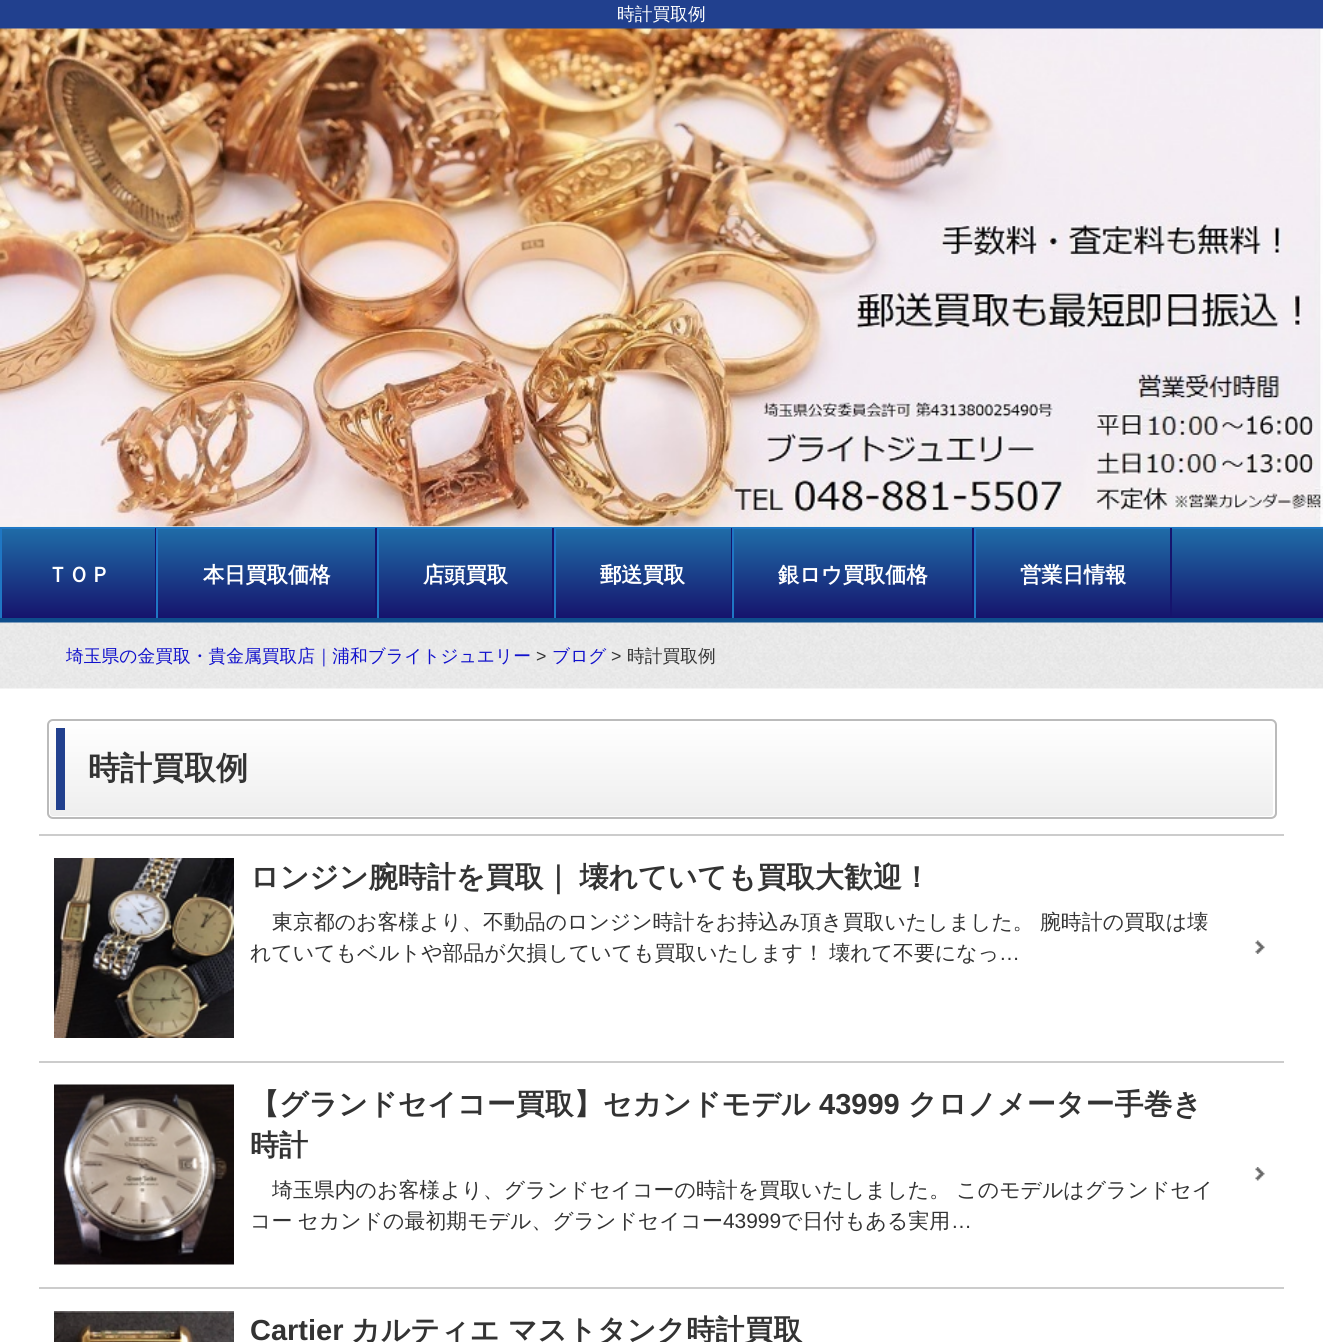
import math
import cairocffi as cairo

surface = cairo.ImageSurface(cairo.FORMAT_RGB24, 1323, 1342)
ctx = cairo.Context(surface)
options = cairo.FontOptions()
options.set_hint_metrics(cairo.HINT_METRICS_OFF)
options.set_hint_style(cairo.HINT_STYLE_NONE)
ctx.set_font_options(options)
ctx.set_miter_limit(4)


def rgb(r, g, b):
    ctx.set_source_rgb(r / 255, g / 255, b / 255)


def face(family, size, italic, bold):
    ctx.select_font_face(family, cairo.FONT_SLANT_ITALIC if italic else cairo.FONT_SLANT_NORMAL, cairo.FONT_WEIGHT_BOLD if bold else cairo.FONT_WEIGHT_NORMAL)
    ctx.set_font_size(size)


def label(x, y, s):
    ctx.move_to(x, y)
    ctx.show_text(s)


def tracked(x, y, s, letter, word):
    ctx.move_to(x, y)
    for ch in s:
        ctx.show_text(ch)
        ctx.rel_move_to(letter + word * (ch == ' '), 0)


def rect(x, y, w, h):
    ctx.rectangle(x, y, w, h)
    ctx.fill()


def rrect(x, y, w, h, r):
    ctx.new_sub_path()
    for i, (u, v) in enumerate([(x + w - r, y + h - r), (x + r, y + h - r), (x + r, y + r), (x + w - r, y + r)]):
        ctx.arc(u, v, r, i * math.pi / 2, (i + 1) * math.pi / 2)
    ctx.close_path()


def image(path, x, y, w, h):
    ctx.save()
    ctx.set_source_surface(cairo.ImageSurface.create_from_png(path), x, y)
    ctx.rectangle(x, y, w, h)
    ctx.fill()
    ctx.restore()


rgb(255, 255, 255)
ctx.paint()
gradient = cairo.LinearGradient(662, 0, 662, 527)
gradient.add_color_stop_rgba(0, 1, 1, 1, 1)
gradient.add_color_stop_rgba(1, 0.929, 0.929, 0.929, 1)
ctx.set_source(gradient)
rect(0, 526, 1323, 1)
rgb(33, 64, 142)
rect(0, 0, 1323, 29)
face('WenQuanYi Zen Hei Medium', 17.75, 0, 0)
rgb(255, 255, 255)
label(617, 20, '時計買取例')
image('image0.png', 0, 28, 1323, 499)
gradient = cairo.LinearGradient(662, 528, 662, 618)
gradient.add_color_stop_rgba(0, 0.122, 0.427, 0.659, 1)
gradient.add_color_stop_rgba(1, 0.086, 0.078, 0.427, 1)
ctx.set_source(gradient)
rect(2, 529, 1321, 89)
rgb(31, 119, 196)
rect(0, 527, 1323, 2)
rgb(14, 77, 140)
rect(0, 618, 1323, 5)
rgb(22, 20, 109)
rect(155, 528, 1, 90)
rgb(31, 119, 196)
rect(0, 528, 2, 90)
face('WenQuanYi Zen Hei', 21.25, 0, 1)
rgb(255, 255, 255)
label(47, 582, 'ＴＯＰ')
rgb(22, 20, 109)
rect(375, 528, 2, 90)
rgb(31, 119, 196)
rect(156, 528, 2, 90)
rgb(255, 255, 255)
label(203, 582, '本日買取価格')
rgb(22, 20, 109)
rect(552, 528, 2, 90)
rgb(31, 119, 196)
rect(377, 528, 2, 90)
rgb(255, 255, 255)
label(423, 582, '店頭買取')
rgb(22, 20, 109)
rect(731, 528, 1, 90)
rgb(31, 119, 196)
rect(554, 528, 2, 90)
rgb(255, 255, 255)
label(600, 582, '郵送買取')
rgb(22, 20, 109)
rect(972, 528, 2, 90)
rgb(31, 119, 196)
rect(732, 528, 2, 90)
rgb(255, 255, 255)
label(778, 582, '銀ロウ買取価格')
rgb(22, 20, 109)
rect(1170, 528, 2, 90)
rgb(31, 119, 196)
rect(974, 528, 2, 90)
rgb(255, 255, 255)
label(1020, 582, '営業日情報')
image('image1.png', 0, 622, 1323, 67)
face('WenQuanYi Zen Hei Medium', 17.75, 0, 0)
rgb(17, 17, 204)
label(66, 662, '埼玉県の金買取・貴金属買取店｜浦和ブライトジュエリー')
face('Liberation Sans', 17.75, 0, 0)
rgb(51, 51, 51)
label(536, 662, '>')
face('WenQuanYi Zen Hei Medium', 17.75, 0, 0)
rgb(17, 17, 204)
label(552, 662, 'ブログ')
face('Liberation Sans', 17.75, 0, 0)
rgb(51, 51, 51)
label(611, 662, '>')
face('WenQuanYi Zen Hei Medium', 17.75, 0, 0)
label(627, 662, '時計買取例')
ctx.save()
rrect(47, 719, 1230, 100, 6)
ctx.clip()
gradient = cairo.LinearGradient(662, 720, 662, 818)
gradient.add_color_stop_rgba(0, 1, 1, 1, 1)
gradient.add_color_stop_rgba(1, 0.933, 0.933, 0.933, 1)
ctx.set_source(gradient)
rect(47, 720, 1230, 98)
ctx.restore()
rrect(49, 721, 1225, 96, 4)
rgb(255, 255, 255)
ctx.stroke()
rrect(48, 720, 1228, 98, 5)
rgb(187, 187, 187)
ctx.stroke()
rgb(33, 64, 142)
rect(56, 728, 9, 82)
face('WenQuanYi Zen Hei', 32, 0, 1)
rgb(51, 51, 51)
label(88, 779, '時計買取例')
rgb(204, 204, 204)
rect(39, 834, 1245, 2)
image('image2.png', 1255, 940, 10, 14)
image('image3.png', 54, 858, 180, 180)
face('WenQuanYi Zen Hei', 29, 0, 1)
rgb(51, 51, 51)
tracked(250, 887, 'ロンジン腕時計を買取｜ 壊れていても買取大歓迎！', 0, -1)
face('WenQuanYi Zen Hei Medium', 20.9, 0, 0)
label(272, 929, '東京都のお客様より、不動品のロンジン時計をお持込み頂き買取いたしました。 腕時計の買取は壊')
tracked(250, 960, 'れていてもベルトや部品が欠損していても買取いたします！ 壊れて不要になっ', 0, -1)
face('Liberation Sans', 20.9, 0, 0)
label(999, 960, '…')
rgb(204, 204, 204)
rect(39, 1061, 1245, 2)
image('image4.png', 1255, 1167, 10, 14)
image('image5.png', 54, 1084, 180, 181)
face('WenQuanYi Zen Hei', 29, 0, 1)
rgb(51, 51, 51)
label(250, 1114, '【グランドセイコー買取】セカンドモデル')
face('Liberation Sans', 29, 0, 1)
label(819, 1114, '43999')
face('WenQuanYi Zen Hei', 29, 0, 1)
label(908, 1114, 'クロノメーター手巻き')
label(250, 1155, '時計')
face('WenQuanYi Zen Hei Medium', 20.9, 0, 0)
label(272, 1197, '埼玉県内のお客様より、グランドセイコーの時計を買取いたしました。 このモデルはグランドセイ')
tracked(250, 1228, 'コー セカンドの最初期モデル、グランドセイコー', 0, -1)
face('Liberation Sans', 20.9, 0, 0)
label(723, 1228, '43999')
face('WenQuanYi Zen Hei Medium', 20.9, 0, 0)
label(781, 1228, 'で日付もある実用')
face('Liberation Sans', 20.9, 0, 0)
label(951, 1228, '…')
rgb(204, 204, 204)
rect(39, 1287, 1245, 2)
image('image6.png', 54, 1311, 180, 31)
face('Liberation Sans', 29, 0, 1)
rgb(51, 51, 51)
label(250, 1340, 'Cartier')
face('WenQuanYi Zen Hei', 29, 0, 1)
label(351, 1340, 'カルティエ マストタンク時計買取')
surface.write_to_png('render.png')
